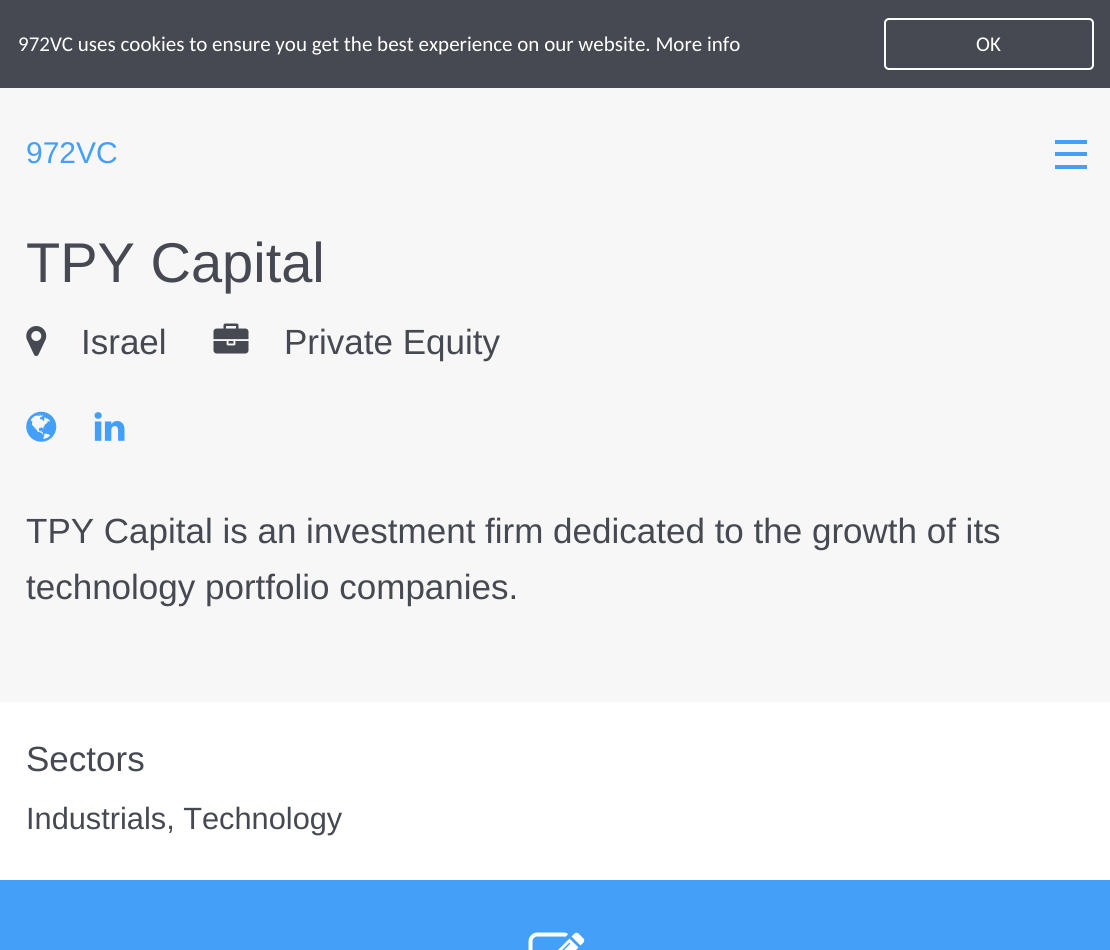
import math
import cairocffi as cairo

surface = cairo.ImageSurface(cairo.FORMAT_RGB24, 1110, 950)
ctx = cairo.Context(surface)
options = cairo.FontOptions()
options.set_hint_metrics(cairo.HINT_METRICS_OFF)
options.set_hint_style(cairo.HINT_STYLE_NONE)
ctx.set_font_options(options)
ctx.set_miter_limit(4)


def rgb(r, g, b):
    ctx.set_source_rgb(r / 255, g / 255, b / 255)


def face(family, size, italic, bold):
    ctx.select_font_face(family, cairo.FONT_SLANT_ITALIC if italic else cairo.FONT_SLANT_NORMAL, cairo.FONT_WEIGHT_BOLD if bold else cairo.FONT_WEIGHT_NORMAL)
    ctx.set_font_size(size)


def label(x, y, s):
    ctx.move_to(x, y)
    ctx.show_text(s)


def rect(x, y, w, h):
    ctx.rectangle(x, y, w, h)
    ctx.fill()


def rrect(x, y, w, h, r):
    ctx.new_sub_path()
    for i, (u, v) in enumerate([(x + w - r, y + h - r), (x + r, y + h - r), (x + r, y + r), (x + w - r, y + r)]):
        ctx.arc(u, v, r, i * math.pi / 2, (i + 1) * math.pi / 2)
    ctx.close_path()


def image(path, x, y, w, h):
    ctx.save()
    ctx.set_source_surface(cairo.ImageSurface.create_from_png(path), x, y)
    ctx.rectangle(x, y, w, h)
    ctx.fill()
    ctx.restore()


rgb(255, 255, 255)
ctx.paint()
rgb(70, 73, 82)
rect(0, 0, 1110, 88)
face('Carlito', 21, 0, 0)
rgb(255, 255, 255)
label(18, 51, '972VC uses cookies to ensure you get the best experience on our website. More info')
rrect(885, 19, 208, 50, 4)
ctx.stroke()
label(976, 51, 'OK')
rgb(247, 247, 247)
rect(0, 88, 1110, 614)
face('Liberation Sans', 30, 0, 0)
rgb(67, 159, 247)
label(26, 163, '972VC')
rect(1055, 165, 32, 4)
rect(1055, 152, 32, 4)
rect(1055, 140, 32, 4)
face('Liberation Sans', 56, 0, 0)
rgb(70, 73, 82)
label(26, 282, 'TPY Capital')
image('image0.png', 26, 326, 21, 30)
face('Liberation Sans', 35, 0, 0)
label(81, 354, 'Israel')
image('image1.png', 213, 323, 36, 31)
label(284, 354, 'Private Equity')
image('image2.png', 26, 411, 31, 31)
image('image3.png', 94, 412, 31, 29)
label(26, 543, 'TPY Capital is an investment firm dedicated to the growth of its')
label(26, 599, 'technology portfolio companies.')
label(26, 771, 'Sectors')
face('Liberation Sans', 30.75, 0, 0)
label(26, 829, 'Industrials, Technology')
rgb(67, 159, 247)
rect(0, 880, 1110, 70)
image('image4.png', 528, 932, 57, 18)
surface.write_to_png('render.png')
